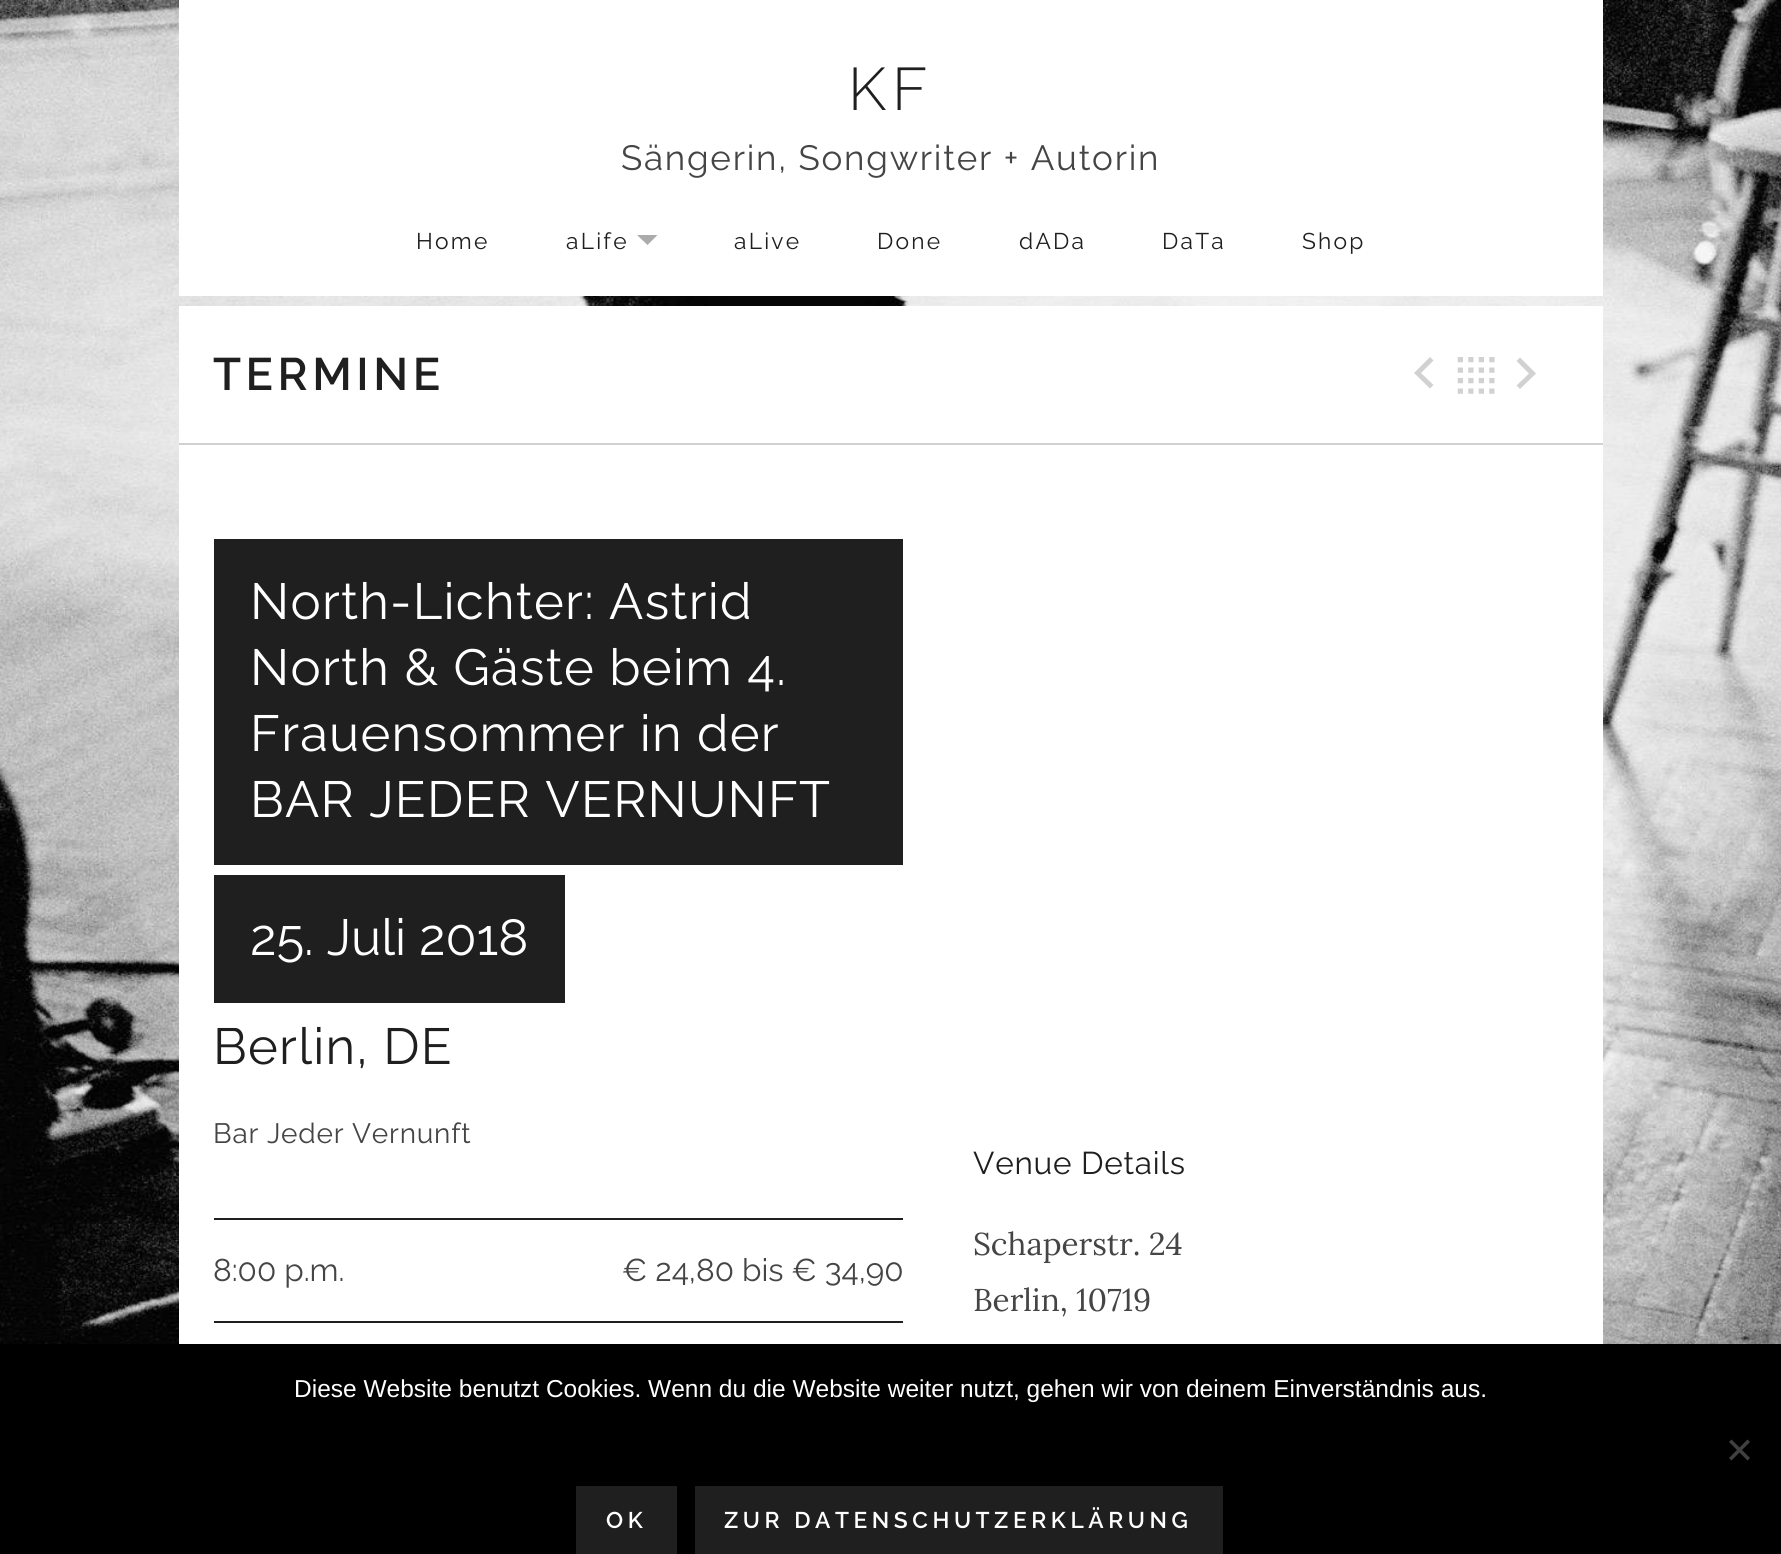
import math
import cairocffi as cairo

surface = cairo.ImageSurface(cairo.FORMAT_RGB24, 1781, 1554)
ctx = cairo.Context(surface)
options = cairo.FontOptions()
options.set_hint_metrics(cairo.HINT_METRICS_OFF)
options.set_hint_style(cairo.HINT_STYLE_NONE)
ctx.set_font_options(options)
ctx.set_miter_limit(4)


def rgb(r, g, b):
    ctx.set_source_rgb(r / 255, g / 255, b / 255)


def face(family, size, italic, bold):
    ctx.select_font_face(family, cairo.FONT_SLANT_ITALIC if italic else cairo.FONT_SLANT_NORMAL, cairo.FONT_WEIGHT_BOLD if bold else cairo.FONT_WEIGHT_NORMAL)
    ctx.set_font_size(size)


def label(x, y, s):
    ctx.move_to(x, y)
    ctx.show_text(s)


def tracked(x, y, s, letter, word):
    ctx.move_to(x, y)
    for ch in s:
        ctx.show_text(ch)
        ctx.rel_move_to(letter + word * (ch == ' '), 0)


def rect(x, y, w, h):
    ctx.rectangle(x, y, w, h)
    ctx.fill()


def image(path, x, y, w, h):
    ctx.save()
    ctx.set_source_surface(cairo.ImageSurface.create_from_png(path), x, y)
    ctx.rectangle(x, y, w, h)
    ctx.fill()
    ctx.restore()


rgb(255, 255, 255)
ctx.paint()
image('image0.png', 0, 0, 1781, 1344)
rgb(255, 255, 255)
rect(179, 0, 1424, 296)
face('Raleway Light', 60, 0, 0)
rgb(31, 31, 31)
tracked(848, 110, 'KF', 6, 0)
face('Raleway', 35, 0, 0)
rgb(69, 69, 69)
tracked(621, 170, 'Sängerin, Songwriter + Autorin', 1.75, 0)
face('Raleway', 22.75, 0, 0)
rgb(31, 31, 31)
tracked(416, 249, 'Home', 2.25, 0)
tracked(566, 249, 'aLife', 2.25, 0)
ctx.save()
ctx.rectangle(635, 235, 23, 22)
ctx.clip()
rgb(171, 171, 171)
ctx.new_path()
ctx.move_to(636.5, 234.5)
ctx.line_to(658, 234.5)
ctx.line_to(647.5, 245)
ctx.close_path()
ctx.fill()
ctx.restore()
tracked(734, 249, 'aLive', 2.25, 0)
tracked(877, 249, 'Done', 2.25, 0)
tracked(1019, 249, 'dADa', 2.25, 0)
tracked(1162, 249, 'DaTa', 2.25, 0)
tracked(1302, 249, 'Shop', 2.25, 0)
rgb(255, 255, 255)
rect(179, 306, 1424, 1038)
rgb(209, 209, 209)
rect(179, 443, 1424, 2)
face('Raleway SemiBold', 45.5, 0, 0)
rgb(31, 31, 31)
tracked(213, 390, 'TERMINE', 4.55, 0)
rgb(209, 209, 209)
ctx.new_path()
ctx.move_to(1433.5, 360.5)
ctx.line_to(1421, 373)
ctx.line_to(1433.5, 385)
ctx.line_to(1430, 388.5)
ctx.line_to(1414, 373)
ctx.line_to(1430, 357)
ctx.close_path()
ctx.fill()
image('image1.png', 1457, 357, 38, 37)
ctx.new_path()
ctx.move_to(1516.5, 385.5)
ctx.line_to(1529, 373.5)
ctx.line_to(1516.5, 361)
ctx.line_to(1520, 357.5)
ctx.line_to(1536, 373.5)
ctx.line_to(1520, 389)
ctx.close_path()
ctx.fill()
rgb(31, 31, 31)
rect(214, 539, 689, 326)
face('Raleway', 50.75, 0, 0)
rgb(255, 255, 255)
tracked(250, 619, 'North-Lichter: Astrid', 1.25, 0)
tracked(250, 685, 'North & Gäste beim 4.', 1.25, 0)
tracked(250, 751, 'Frauensommer in der', 1.25, 0)
tracked(250, 817, 'BAR JEDER VERNUNFT', 1.25, 0)
rgb(31, 31, 31)
rect(214, 875, 351, 128)
rgb(255, 255, 255)
label(250, 955, '25. Juli 2018')
rgb(31, 31, 31)
tracked(213, 1064, 'Berlin, DE', 1.25, 0)
face('Raleway', 28, 0, 0)
rgb(69, 69, 69)
tracked(213, 1143, 'Bar Jeder Vernunft', 0.75, 0)
rgb(31, 31, 31)
rect(214, 1218, 689, 2)
rect(214, 1321, 689, 2)
face('Raleway', 31.5, 0, 0)
rgb(69, 69, 69)
label(213, 1281, '8:00 p.m.')
label(622, 1281, '€ 24,80 bis € 34,90')
rgb(31, 31, 31)
tracked(973, 1174, 'Venue Details', 0.75, 0)
face('Lora', 31.5, 0, 0)
rgb(69, 69, 69)
label(973, 1255, 'Schaperstr. 24')
label(973, 1311, 'Berlin, 10719')
rgb(0, 0, 0)
rect(0, 1344, 1781, 210)
face('Liberation Sans', 24.5, 0, 0)
rgb(255, 255, 255)
label(294, 1397, 'Diese Website benutzt Cookies. Wenn du die Website weiter nutzt, gehen wir von deinem Einverständnis aus.')
rgb(64, 64, 64)
ctx.new_path()
ctx.move_to(1747.5, 1439.5)
ctx.line_to(1750, 1442)
ctx.line_to(1731.5, 1460.5)
ctx.line_to(1729, 1458)
ctx.close_path()
ctx.fill()
ctx.new_path()
ctx.move_to(1729, 1442)
ctx.line_to(1731.5, 1439.5)
ctx.line_to(1750, 1458)
ctx.line_to(1747.5, 1460.5)
ctx.close_path()
ctx.fill()
rgb(31, 31, 31)
rect(576, 1486, 101, 68)
face('Raleway SemiBold', 22.75, 0, 0)
rgb(255, 255, 255)
tracked(606, 1528, 'OK', 4.55, 0)
rgb(31, 31, 31)
rect(695, 1486, 528, 68)
rgb(255, 255, 255)
tracked(724, 1528, 'ZUR DATENSCHUTZERKLÄRUNG', 4.55, 0)
surface.write_to_png('render.png')
